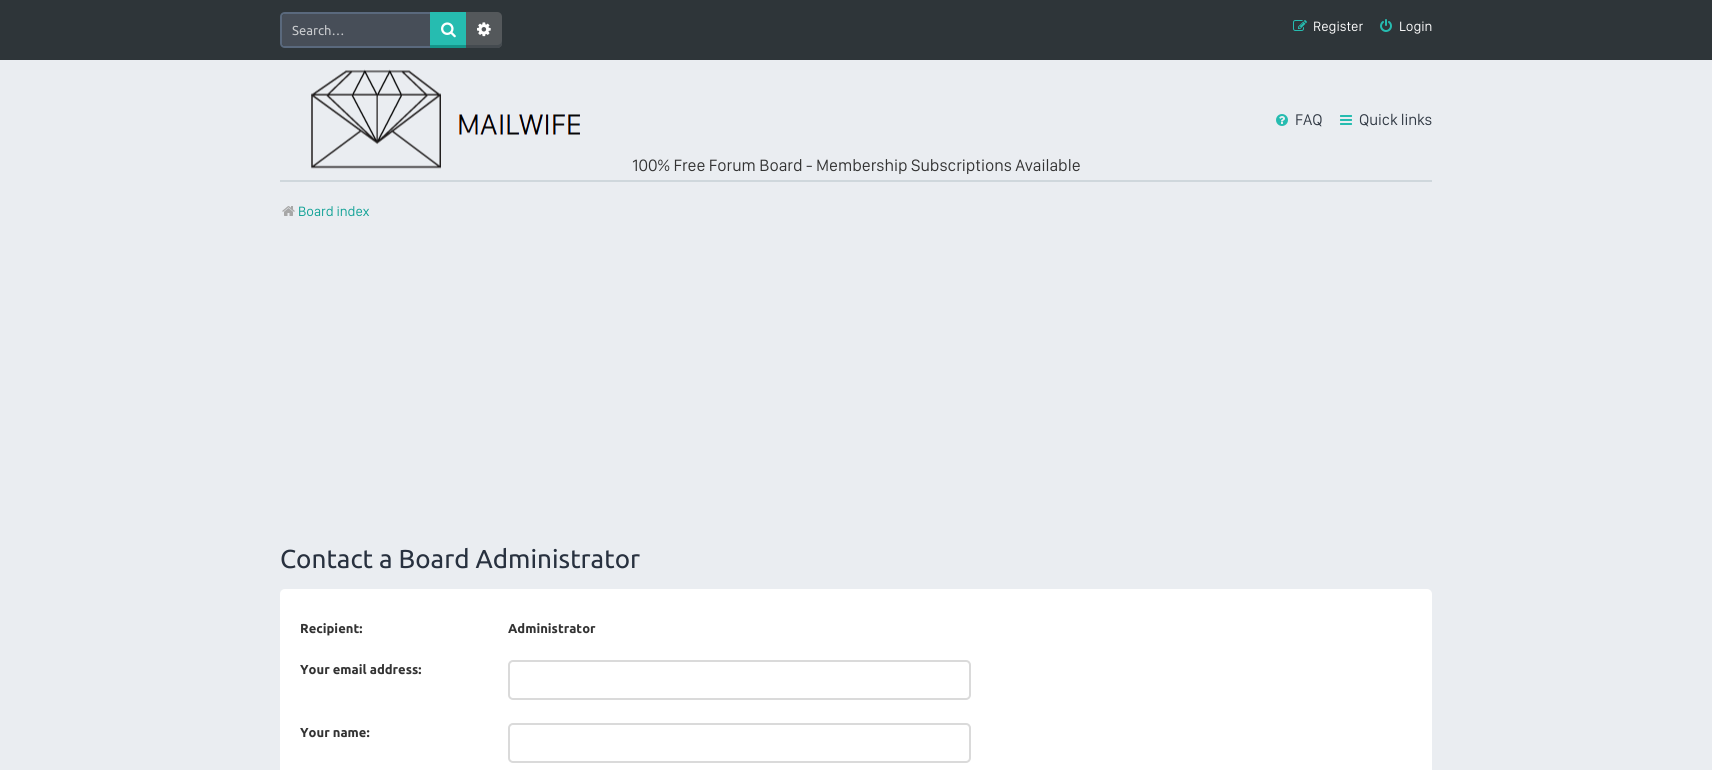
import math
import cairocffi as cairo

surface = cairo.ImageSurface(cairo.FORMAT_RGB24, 1712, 770)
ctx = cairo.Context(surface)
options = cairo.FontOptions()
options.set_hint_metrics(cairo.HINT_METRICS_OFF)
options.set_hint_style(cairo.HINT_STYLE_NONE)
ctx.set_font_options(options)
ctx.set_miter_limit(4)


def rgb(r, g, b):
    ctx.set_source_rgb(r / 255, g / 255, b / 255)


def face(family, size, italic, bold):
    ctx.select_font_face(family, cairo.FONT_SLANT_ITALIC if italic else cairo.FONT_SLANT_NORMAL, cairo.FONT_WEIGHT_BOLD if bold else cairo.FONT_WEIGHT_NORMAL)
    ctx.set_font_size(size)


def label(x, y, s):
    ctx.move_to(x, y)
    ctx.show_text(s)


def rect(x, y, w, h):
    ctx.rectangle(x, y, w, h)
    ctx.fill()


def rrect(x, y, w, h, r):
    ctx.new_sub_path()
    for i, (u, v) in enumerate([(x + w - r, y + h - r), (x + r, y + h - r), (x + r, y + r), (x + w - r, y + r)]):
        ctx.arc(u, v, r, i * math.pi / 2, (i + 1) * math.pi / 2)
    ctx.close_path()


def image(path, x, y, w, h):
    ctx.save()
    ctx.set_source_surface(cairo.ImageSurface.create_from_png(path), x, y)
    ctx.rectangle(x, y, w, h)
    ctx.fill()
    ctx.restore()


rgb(234, 237, 241)
ctx.paint()
rgb(46, 53, 57)
rect(0, 0, 1712, 60)
rgb(71, 78, 88)
ctx.new_path()
ctx.move_to(285, 14)
ctx.line_to(430, 14)
ctx.line_to(430, 46)
ctx.line_to(285, 46)
ctx.curve_to(283.5, 46, 282, 44.5, 282, 43)
ctx.line_to(282, 17)
ctx.curve_to(282, 15.5, 283.5, 14, 285, 14)
ctx.close_path()
ctx.fill()
rgb(90, 105, 125)
ctx.set_fill_rule(cairo.FILL_RULE_EVEN_ODD)
ctx.new_path()
ctx.move_to(285, 12)
ctx.line_to(430, 12)
ctx.line_to(430, 48)
ctx.line_to(285, 48)
ctx.curve_to(282, 48, 280, 46, 280, 43)
ctx.line_to(280, 17)
ctx.curve_to(280, 14, 282, 12, 285, 12)
ctx.close_path()
ctx.move_to(285, 14)
ctx.line_to(430, 14)
ctx.line_to(430, 46)
ctx.line_to(285, 46)
ctx.curve_to(283, 46, 282, 45, 282, 43)
ctx.line_to(282, 17)
ctx.curve_to(282, 15, 283, 14, 285, 14)
ctx.close_path()
ctx.fill()
face('Ubuntu', 13, 0, 0)
rgb(200, 202, 205)
label(292, 35, 'Search…')
rgb(38, 188, 176)
rect(430, 12, 36, 33)
rgb(21, 149, 138)
rect(430, 45, 36, 3)
image('image0.png', 441, 22, 15, 16)
rgb(84, 88, 91)
ctx.new_path()
ctx.move_to(466, 12)
ctx.line_to(497, 12)
ctx.curve_to(500, 12, 502, 14, 502, 17)
ctx.line_to(502, 43)
ctx.curve_to(502, 46, 500, 48, 497, 48)
ctx.line_to(466, 48)
ctx.close_path()
ctx.fill()
rgb(68, 74, 79)
ctx.set_fill_rule(cairo.FILL_RULE_WINDING)
ctx.new_path()
ctx.move_to(466, 45)
ctx.line_to(466, 48)
ctx.line_to(497, 48)
ctx.curve_to(500, 48, 502, 46, 502, 43)
ctx.line_to(502, 40)
ctx.curve_to(502, 43, 500, 45, 497, 45)
ctx.close_path()
ctx.fill()
image('image1.png', 477, 22, 14, 15)
image('image2.png', 1293, 20, 14, 11)
face('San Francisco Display', 14, 0, 0)
rgb(255, 255, 255)
label(1313, 31, 'Register')
image('image3.png', 1380, 19, 12, 13)
label(1399, 31, 'Login')
image('image4.png', 1276, 114, 12, 12)
face('San Francisco Display', 16, 0, 0)
rgb(50, 58, 69)
label(1295, 125, 'FAQ')
image('image5.png', 1340, 115, 12, 10)
label(1359, 125, 'Quick links')
rgb(207, 215, 220)
rect(280, 180, 1152, 2)
image('image6.png', 282, 206, 13, 10)
face('San Francisco Display', 14, 0, 0)
rgb(15, 161, 149)
label(298, 216, 'Board index')
image('image7.png', 311, 69, 269, 100)
face('San Francisco Display', 17, 0, 0)
rgb(51, 51, 51)
label(632, 171, '100% Free Forum Board - Membership Subscriptions Available')
face('Ubuntu', 26, 0, 0)
rgb(40, 49, 63)
label(280, 568, 'Contact a Board Administrator')
rgb(255, 255, 255)
rrect(280, 589, 1152, 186, 5)
ctx.fill()
face('Ubuntu', 13, 0, 1)
rgb(51, 51, 51)
label(300, 633, 'Recipient:')
label(508, 633, 'Administrator')
label(300, 674, 'Your email address:')
rrect(509, 661, 461, 38, 4)
rgb(218, 218, 218)
ctx.stroke()
rgb(51, 51, 51)
label(300, 737, 'Your name:')
rrect(509, 724, 461, 38, 4)
rgb(218, 218, 218)
ctx.stroke()
surface.write_to_png('render.png')
